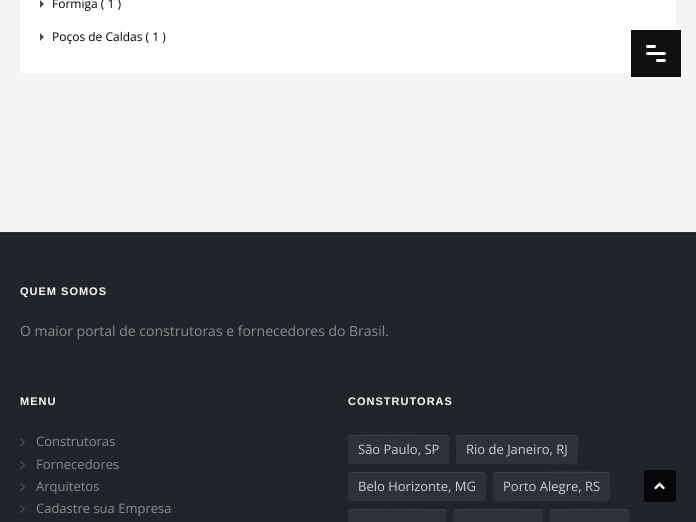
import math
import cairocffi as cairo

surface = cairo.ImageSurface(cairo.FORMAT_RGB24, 696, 522)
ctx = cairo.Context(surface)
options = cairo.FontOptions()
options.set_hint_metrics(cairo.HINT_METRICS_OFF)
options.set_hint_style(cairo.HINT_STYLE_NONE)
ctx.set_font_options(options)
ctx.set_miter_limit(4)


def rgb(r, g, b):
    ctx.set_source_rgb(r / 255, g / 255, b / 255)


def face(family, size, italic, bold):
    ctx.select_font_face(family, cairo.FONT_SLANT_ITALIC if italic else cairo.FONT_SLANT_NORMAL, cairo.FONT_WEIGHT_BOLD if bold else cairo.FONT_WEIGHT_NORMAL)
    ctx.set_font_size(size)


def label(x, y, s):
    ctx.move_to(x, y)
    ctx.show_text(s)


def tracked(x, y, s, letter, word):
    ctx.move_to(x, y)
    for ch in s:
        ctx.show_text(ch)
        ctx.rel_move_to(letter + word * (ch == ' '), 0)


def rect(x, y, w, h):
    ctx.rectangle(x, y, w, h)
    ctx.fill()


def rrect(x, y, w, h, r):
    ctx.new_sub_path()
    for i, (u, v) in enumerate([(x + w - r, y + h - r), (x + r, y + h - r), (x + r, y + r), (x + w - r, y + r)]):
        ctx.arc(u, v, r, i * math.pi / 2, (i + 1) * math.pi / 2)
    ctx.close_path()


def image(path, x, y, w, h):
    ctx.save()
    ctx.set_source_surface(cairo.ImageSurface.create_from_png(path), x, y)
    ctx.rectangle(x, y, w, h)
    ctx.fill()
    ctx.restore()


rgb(245, 245, 245)
ctx.paint()
rgb(255, 255, 255)
rect(20, 0, 656, 73)
rgb(77, 77, 77)
ctx.new_path()
ctx.move_to(40, 8)
ctx.line_to(40, 0)
ctx.line_to(44, 4)
ctx.close_path()
ctx.fill()
face('Open Sans', 12, 0, 0)
rgb(0, 0, 0)
label(52, 8, 'Formiga ( 1 )')
rgb(77, 77, 77)
ctx.new_path()
ctx.move_to(40, 41)
ctx.line_to(40, 33)
ctx.line_to(44, 37)
ctx.close_path()
ctx.fill()
rgb(0, 0, 0)
label(52, 41, 'Poços de Caldas ( 1 )')
rgb(17, 17, 17)
rect(631, 30, 50, 47)
rgb(255, 255, 255)
rrect(646, 45, 10, 3, 1.5)
ctx.fill()
rrect(646, 52, 20, 3, 1.5)
ctx.fill()
rrect(656, 59, 10, 3, 1.5)
ctx.fill()
rgb(33, 37, 43)
rect(0, 233, 696, 289)
rgb(46, 52, 58)
rect(0, 232, 696, 1)
face('Liberation Sans', 11, 0, 1)
rgb(255, 255, 255)
tracked(20, 295, 'QUEM SOMOS', 1, 0)
face('Open Sans', 14, 0, 0)
rgb(133, 141, 145)
label(20, 336, 'O maior portal de construtoras e fornecedores do Brasil.')
face('Liberation Sans', 11, 0, 1)
rgb(255, 255, 255)
tracked(20, 405, 'MENU', 1, 0)
image('image0.png', 20, 438, 5, 8)
face('Open Sans', 13, 0, 0)
rgb(133, 141, 145)
label(36, 446, 'Construtoras')
image('image0.png', 20, 461, 5, 8)
label(36, 469, 'Fornecedores')
image('image0.png', 20, 483, 5, 8)
label(36, 491, 'Arquitetos')
image('image0.png', 20, 505, 5, 8)
label(36, 513, 'Cadastre sua Empresa')
face('Liberation Sans', 11, 0, 1)
rgb(255, 255, 255)
tracked(348, 405, 'CONSTRUTORAS', 1, 0)
rgb(45, 50, 58)
rrect(348, 435, 101, 29, 3)
ctx.fill()
ctx.new_path()
ctx.move_to(349, 436)
ctx.line_to(349.5, 436)
ctx.curve_to(351.5, 434.5, 422, 435.5, 430, 435.5)
ctx.line_to(446, 435.5)
ctx.line_to(448, 436)
rgb(57, 63, 71)
ctx.set_line_width(1)
ctx.stroke()
ctx.new_path()
ctx.move_to(448, 436)
ctx.curve_to(449.5, 438, 448.5, 443.5, 448.5, 445.5)
ctx.curve_to(448.5, 467.5, 452.5, 463.5, 430, 463.5)
ctx.line_to(367, 463.5)
ctx.curve_to(344.5, 463.5, 348.5, 467.5, 348.5, 445.5)
ctx.curve_to(348.5, 443.5, 347.5, 438, 349, 436)
rgb(45, 50, 58)
ctx.stroke()
face('Open Sans', 13, 0, 0)
rgb(201, 209, 214)
label(358, 454, 'São Paulo, SP')
rgb(45, 50, 58)
rrect(456, 435, 122, 29, 3)
ctx.fill()
ctx.new_path()
ctx.move_to(457, 436)
ctx.line_to(459, 435.5)
ctx.line_to(555.5, 435.5)
ctx.line_to(575, 435.5)
ctx.line_to(577, 436)
rgb(57, 63, 71)
ctx.stroke()
ctx.new_path()
ctx.move_to(577, 436)
ctx.curve_to(578.5, 438, 577.5, 447, 577.5, 449.5)
ctx.line_to(577.5, 457)
ctx.curve_to(577.5, 459, 578.5, 463.5, 575, 463.5)
ctx.line_to(459, 463.5)
ctx.curve_to(455.5, 463.5, 456.5, 459, 456.5, 457)
ctx.line_to(456.5, 449.5)
ctx.curve_to(456.5, 447, 455.5, 438, 457, 436)
rgb(45, 50, 58)
ctx.stroke()
rgb(201, 209, 214)
label(466, 454, 'Rio de Janeiro, RJ')
rgb(45, 50, 58)
rrect(348, 472, 138, 29, 3)
ctx.fill()
ctx.new_path()
ctx.move_to(349, 473)
ctx.line_to(351, 472.5)
ctx.line_to(483, 472.5)
ctx.line_to(485, 473)
rgb(57, 63, 71)
ctx.stroke()
ctx.new_path()
ctx.move_to(485, 473)
ctx.curve_to(486.5, 475, 485.5, 484, 485.5, 486.5)
ctx.line_to(485.5, 494)
ctx.curve_to(485.5, 496, 486.5, 500.5, 483, 500.5)
ctx.line_to(351, 500.5)
ctx.curve_to(347.5, 500.5, 348.5, 496, 348.5, 494)
ctx.line_to(348.5, 486.5)
ctx.curve_to(348.5, 484, 347.5, 475, 349, 473)
rgb(45, 50, 58)
ctx.stroke()
rgb(201, 209, 214)
label(358, 491, 'Belo Horizonte, MG')
rgb(45, 50, 58)
rrect(493, 472, 117, 29, 3)
ctx.fill()
ctx.new_path()
ctx.move_to(494, 473)
ctx.line_to(496, 472.5)
ctx.line_to(514.5, 472.5)
ctx.curve_to(524, 472.5, 606.5, 471.5, 608.5, 473)
ctx.line_to(609, 473)
rgb(57, 63, 71)
ctx.stroke()
ctx.new_path()
ctx.move_to(609, 473)
ctx.curve_to(610.5, 475, 609.5, 480.5, 609.5, 482.5)
ctx.curve_to(609.5, 505.5, 613.5, 500.5, 588.5, 500.5)
ctx.line_to(514.5, 500.5)
ctx.curve_to(489.5, 500.5, 493.5, 505.5, 493.5, 482.5)
ctx.curve_to(493.5, 480.5, 492.5, 475, 494, 473)
rgb(45, 50, 58)
ctx.stroke()
rgb(201, 209, 214)
label(503, 491, 'Porto Alegre, RS')
rgb(45, 50, 58)
rrect(348, 509, 98, 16, 3)
ctx.fill()
ctx.new_path()
ctx.move_to(349, 510)
ctx.line_to(349.5, 510)
ctx.curve_to(351.5, 508.5, 419.5, 509.5, 427.5, 509.5)
ctx.line_to(443, 509.5)
ctx.line_to(445, 510)
rgb(57, 63, 71)
ctx.stroke()
ctx.new_path()
ctx.move_to(445, 510)
ctx.curve_to(446.5, 512, 445.5, 517.5, 445.5, 519.5)
ctx.curve_to(445.5, 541, 450, 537.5, 427.5, 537.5)
ctx.line_to(366.5, 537.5)
ctx.curve_to(344, 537.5, 348.5, 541, 348.5, 519.5)
ctx.curve_to(348.5, 517.5, 347.5, 512, 349, 510)
rgb(45, 50, 58)
ctx.stroke()
rrect(453, 509, 90, 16, 3)
ctx.fill()
ctx.new_path()
ctx.move_to(454, 510)
ctx.line_to(454.5, 510)
ctx.curve_to(456.5, 508.5, 518.5, 509.5, 526, 509.5)
ctx.line_to(540, 509.5)
ctx.line_to(542, 510)
rgb(57, 63, 71)
ctx.stroke()
ctx.new_path()
ctx.move_to(542, 510)
ctx.curve_to(543.5, 512, 542.5, 521, 542.5, 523.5)
ctx.curve_to(542.5, 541, 545, 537.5, 526, 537.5)
ctx.line_to(470, 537.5)
ctx.curve_to(449, 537.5, 453.5, 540.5, 453.5, 519.5)
ctx.curve_to(453.5, 517.5, 452.5, 512, 454, 510)
rgb(45, 50, 58)
ctx.stroke()
rrect(550, 509, 79, 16, 3)
ctx.fill()
ctx.new_path()
ctx.move_to(551, 510)
ctx.line_to(553, 509.5)
ctx.line_to(565, 509.5)
ctx.curve_to(572, 509.5, 625.5, 508.5, 627.5, 510)
ctx.line_to(628, 510)
rgb(57, 63, 71)
ctx.stroke()
ctx.new_path()
ctx.move_to(628, 510)
ctx.curve_to(629.5, 512, 628.5, 517.5, 628.5, 519.5)
ctx.line_to(628.5, 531)
ctx.curve_to(628.5, 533, 629.5, 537.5, 626, 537.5)
ctx.line_to(565, 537.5)
ctx.curve_to(547.5, 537.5, 550.5, 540.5, 550.5, 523.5)
ctx.curve_to(550.5, 521, 549.5, 512, 551, 510)
rgb(45, 50, 58)
ctx.stroke()
rgb(7, 7, 9)
rrect(644, 470, 32, 32, 2)
ctx.fill()
image('image1.png', 654, 482, 11, 8)
surface.write_to_png('render.png')
